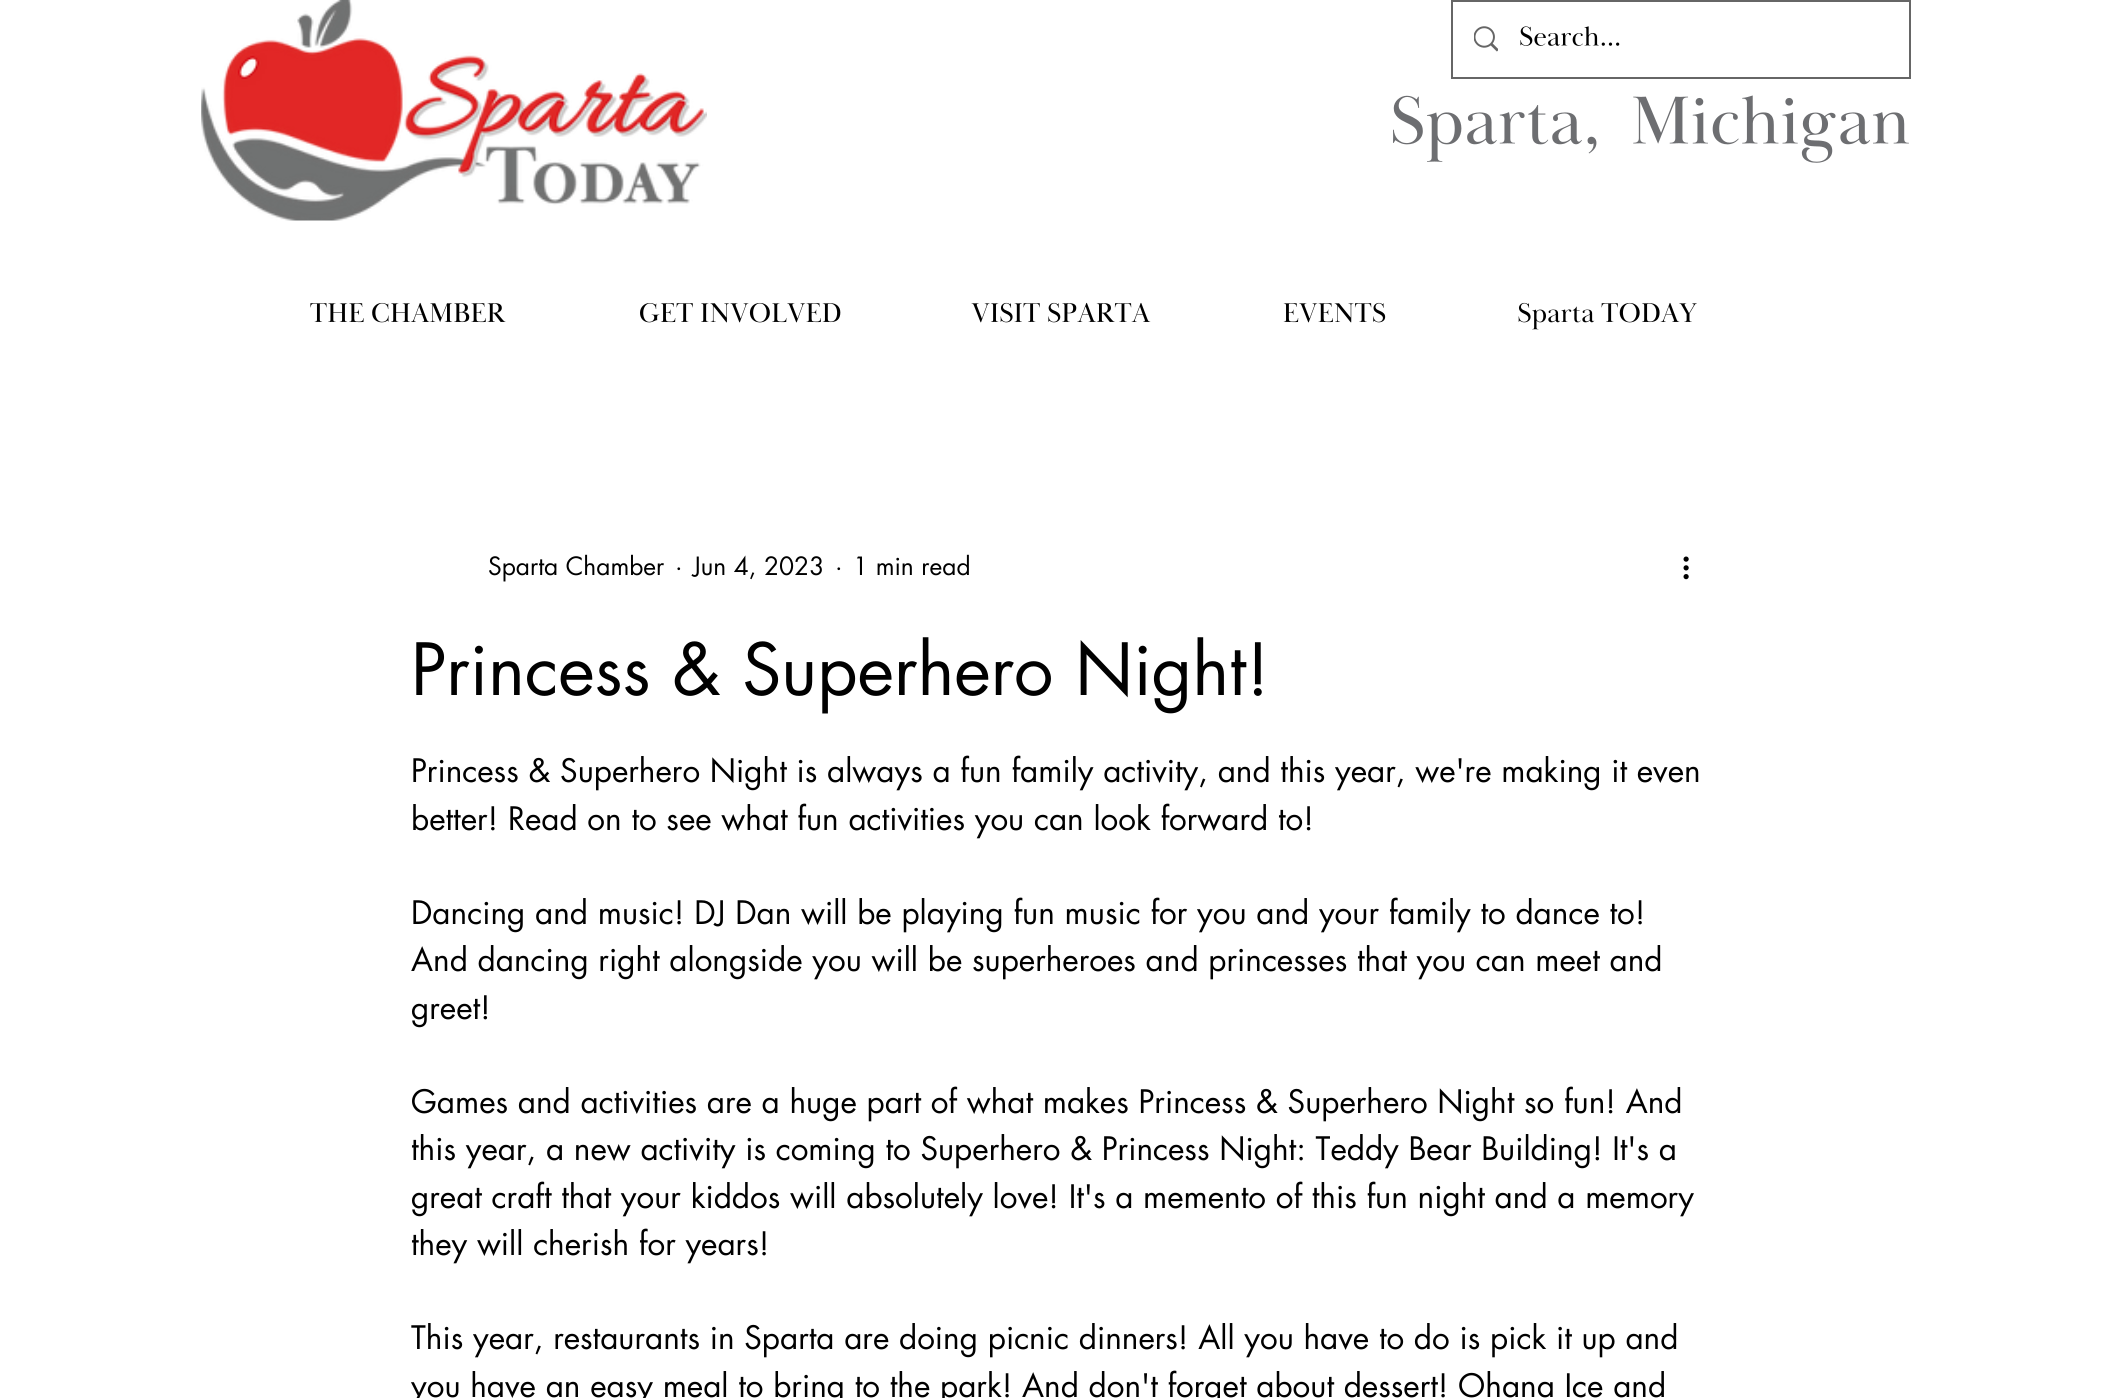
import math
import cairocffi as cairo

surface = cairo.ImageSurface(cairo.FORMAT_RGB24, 2116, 1398)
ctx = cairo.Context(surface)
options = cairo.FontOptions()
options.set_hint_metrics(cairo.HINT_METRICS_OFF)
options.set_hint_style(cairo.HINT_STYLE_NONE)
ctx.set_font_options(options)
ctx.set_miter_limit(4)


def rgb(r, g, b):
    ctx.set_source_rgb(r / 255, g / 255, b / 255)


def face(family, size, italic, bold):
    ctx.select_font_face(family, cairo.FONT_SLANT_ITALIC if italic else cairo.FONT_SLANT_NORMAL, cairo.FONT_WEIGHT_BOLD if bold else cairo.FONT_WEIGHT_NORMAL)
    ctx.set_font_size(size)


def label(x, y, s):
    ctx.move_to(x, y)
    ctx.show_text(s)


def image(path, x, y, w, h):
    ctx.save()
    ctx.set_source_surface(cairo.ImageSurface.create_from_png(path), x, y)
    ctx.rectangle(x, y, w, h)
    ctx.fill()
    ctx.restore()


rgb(255, 255, 255)
ctx.paint()
image('image0.png', 201, 0, 506, 221)
ctx.rectangle(1452, 1, 458, 77)
rgb(102, 102, 102)
ctx.stroke()
image('image1.png', 1474, 26, 24, 26)
image('image2.png', 1520, 26, 100, 20)
image('image3.png', 1393, 95, 204, 67)
image('image4.png', 1633, 95, 276, 68)
image('image5.png', 310, 302, 196, 21)
image('image6.png', 640, 302, 201, 21)
image('image7.png', 971, 302, 180, 21)
image('image8.png', 1283, 302, 103, 21)
image('image9.png', 1518, 302, 179, 28)
face('futura', 24.5, 0, 0)
rgb(0, 0, 0)
label(488, 575, 'Sparta Chamber')
label(675, 575, '·')
label(693, 575, 'Jun 4, 2023')
label(835, 575, '·')
label(853, 575, '1 min read')
image('image10.png', 1683, 556, 6, 24)
face('futura', 70, 0, 0)
label(411, 695, 'Princess & Superhero Night!')
face('futura', 31.5, 0, 0)
label(411, 782, 'Princess & Superhero Night is always a fun family activity, and this year, we\'re making it even')
label(411, 830, 'better! Read on to see what fun activities you can look forward to!')
label(411, 924, 'Dancing and music! DJ Dan will be playing fun music for you and your family to dance to!')
label(411, 971, 'And dancing right alongside you will be superheroes and princesses that you can meet and')
label(411, 1019, 'greet!')
label(411, 1113, 'Games and activities are a huge part of what makes Princess & Superhero Night so fun! And')
label(411, 1160, 'this year, a new activity is coming to Superhero & Princess Night: Teddy Bear Building! It\'s a')
label(411, 1208, 'great craft that your kiddos will absolutely love! It\'s a memento of this fun night and a memory')
label(411, 1255, 'they will cherish for years!')
label(411, 1349, 'This year, restaurants in Sparta are doing picnic dinners! All you have to do is pick it up and')
label(411, 1397, 'you have an easy meal to bring to the park! And don\'t forget about dessert! Ohana Ice and')
surface.write_to_png('render.png')
